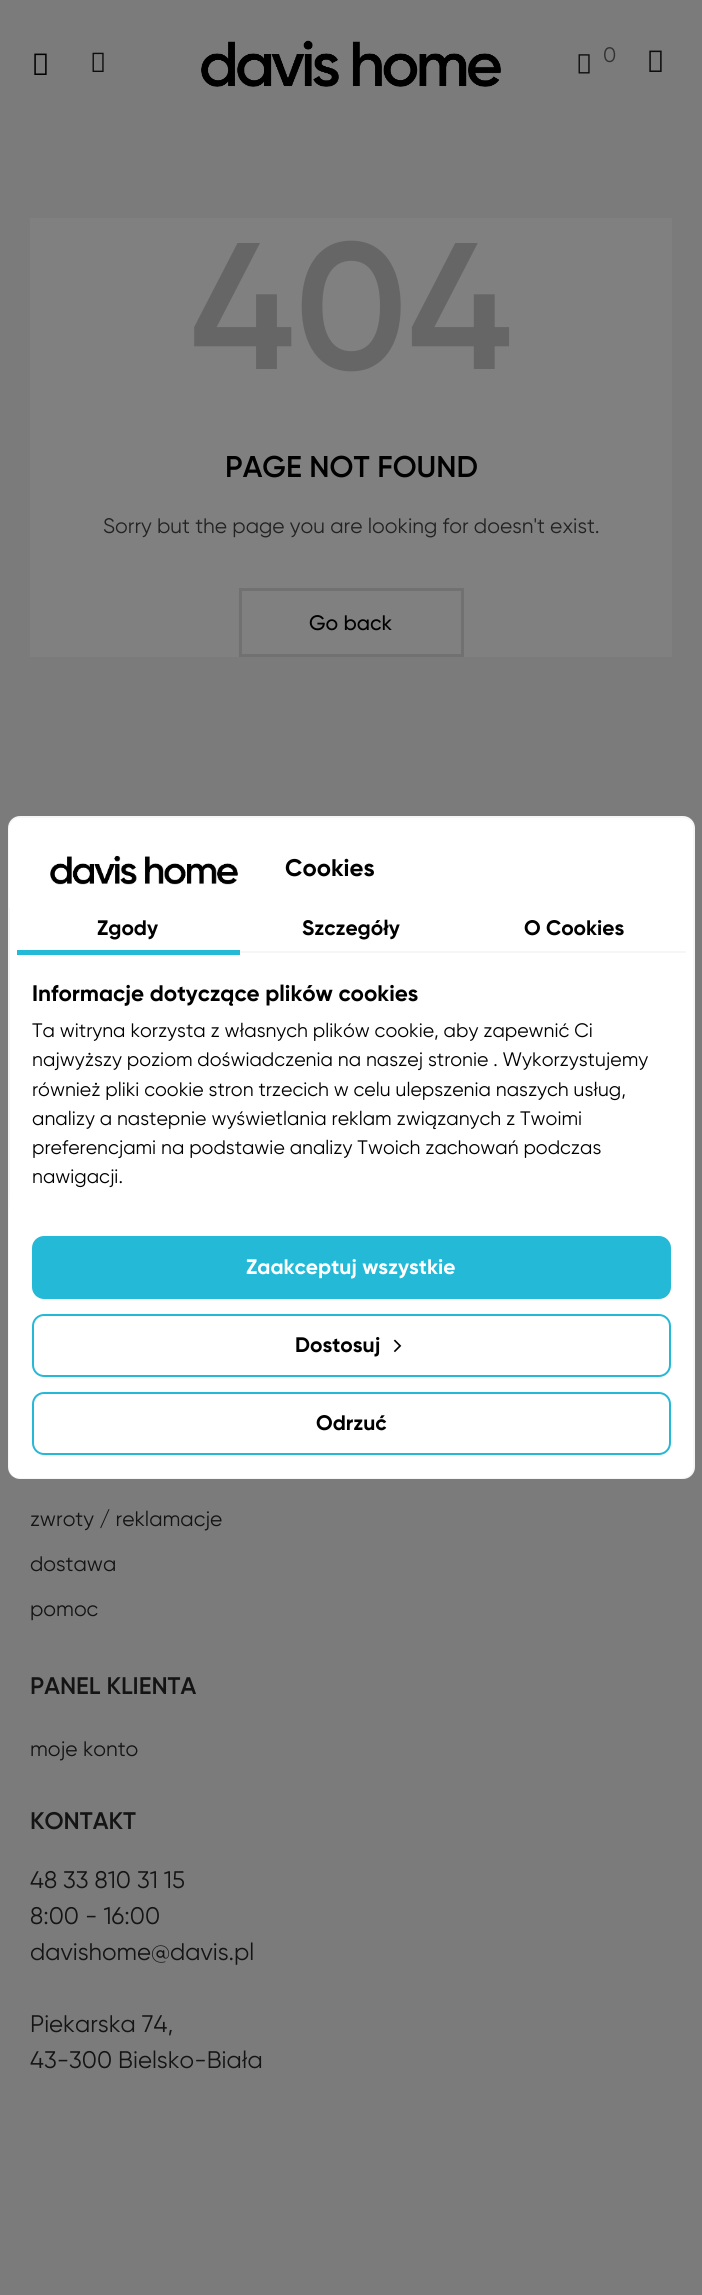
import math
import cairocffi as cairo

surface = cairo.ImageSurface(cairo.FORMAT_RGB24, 702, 2295)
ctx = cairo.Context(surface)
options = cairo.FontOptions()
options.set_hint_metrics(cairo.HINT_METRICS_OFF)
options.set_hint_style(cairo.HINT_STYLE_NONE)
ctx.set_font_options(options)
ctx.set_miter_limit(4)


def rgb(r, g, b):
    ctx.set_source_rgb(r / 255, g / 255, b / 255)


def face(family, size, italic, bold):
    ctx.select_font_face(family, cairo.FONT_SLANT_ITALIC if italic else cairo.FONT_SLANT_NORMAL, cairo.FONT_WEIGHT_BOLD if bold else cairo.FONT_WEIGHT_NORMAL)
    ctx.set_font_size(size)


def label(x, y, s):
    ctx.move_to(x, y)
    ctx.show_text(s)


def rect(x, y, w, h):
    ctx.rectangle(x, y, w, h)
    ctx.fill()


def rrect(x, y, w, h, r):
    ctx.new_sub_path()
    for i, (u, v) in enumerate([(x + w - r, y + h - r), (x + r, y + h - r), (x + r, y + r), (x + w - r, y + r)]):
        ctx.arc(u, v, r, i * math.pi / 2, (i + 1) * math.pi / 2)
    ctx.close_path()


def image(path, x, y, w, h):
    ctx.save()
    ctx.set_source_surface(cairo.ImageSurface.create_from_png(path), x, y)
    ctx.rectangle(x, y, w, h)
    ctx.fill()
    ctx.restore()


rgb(123, 123, 123)
ctx.paint()
image('image0.png', 34, 53, 13, 22)
image('image1.png', 92, 52, 12, 20)
image('image2.png', 201, 40, 300, 47)
image('image3.png', 578, 54, 12, 20)
face('Gilroy', 21, 0, 0)
rgb(51, 51, 51)
label(603, 62, '0')
image('image4.png', 649, 50, 13, 22)
rgb(128, 128, 128)
rect(30, 218, 642, 439)
face('Gilroy SemiBold', 180, 0, 0)
rgb(102, 102, 102)
label(190, 369, '404')
face('Gilroy SemiBold', 30, 0, 0)
rgb(0, 0, 0)
label(225, 477, 'PAGE NOT FOUND')
face('Gilroy', 21, 0, 0)
rgb(34, 34, 34)
label(103, 533, 'Sorry but the page you are looking for doesn\'t exist.')
ctx.rectangle(240.5, 589.5, 222, 66)
rgb(113, 113, 113)
ctx.set_line_width(3)
ctx.stroke()
face('Gilroy Medium', 21, 0, 0)
rgb(0, 0, 0)
label(309, 630, 'Go back')
face('Gilroy', 21, 0, 0)
rgb(20, 20, 20)
label(30, 1526, 'zwroty / reklamacje')
label(30, 1571, 'dostawa')
label(30, 1616, 'pomoc')
face('Gilroy SemiBold', 24, 0, 0)
label(30, 1694, 'PANEL KLIENTA')
face('Gilroy', 21, 0, 0)
label(30, 1756, 'moje konto')
face('Gilroy SemiBold', 24, 0, 0)
label(30, 1829, 'KONTAKT')
face('Gilroy', 24, 0, 0)
label(30, 1888, '48 33 810 31 15')
label(30, 1924, '8:00 - 16:00')
label(30, 1960, 'davishome@davis.pl')
label(30, 2032, 'Piekarska 74,')
label(30, 2068, '43-300 Bielsko-Biała')
rgb(255, 255, 255)
rrect(9, 817, 685, 661, 11)
ctx.fill_preserve()
rgb(246, 246, 246)
ctx.set_line_width(2)
ctx.stroke()
rgb(255, 255, 255)
ctx.new_path()
ctx.move_to(20, 818)
ctx.line_to(682, 818)
ctx.curve_to(688, 818, 693, 823, 693, 829)
ctx.line_to(693, 908)
ctx.line_to(9, 908)
ctx.line_to(9, 829)
ctx.curve_to(9, 823, 14, 818, 20, 818)
ctx.close_path()
ctx.fill()
image('image5.png', 50, 855, 188, 30)
face('Gilroy', 24, 0, 1)
rgb(0, 0, 0)
label(285, 876, 'Cookies')
rgb(246, 246, 246)
rect(240, 951, 446, 2)
rgb(36, 185, 215)
rect(17, 950, 223, 5)
face('Gilroy', 21, 0, 1)
rgb(0, 0, 0)
label(97, 935, 'Zgody')
label(302, 935, 'Szczegóły')
label(524, 935, 'O Cookies')
face('Gilroy', 22.5, 0, 1)
label(32, 1001, 'Informacje dotyczące plików cookies')
face('Gilroy', 19.5, 0, 0)
label(32, 1037, 'Ta witryna korzysta z własnych plików cookie, aby zapewnić Ci')
label(32, 1066, 'najwyższy poziom doświadczenia na naszej stronie . Wykorzystujemy')
label(32, 1096, 'również pliki cookie stron trzecich w celu ulepszenia naszych usług,')
label(32, 1125, 'analizy a nastepnie wyświetlania reklam związanych z Twoimi')
label(32, 1154, 'preferencjami na podstawie analizy Twoich zachowań podczas')
label(32, 1183, 'nawigacji.')
gradient = cairo.LinearGradient(351, 1478, 351, 1191)
gradient.add_color_stop_rgba(0.92, 1, 1, 1, 1)
gradient.add_color_stop_rgba(1, 1, 1, 1, 0)
ctx.set_source(gradient)
ctx.new_path()
ctx.move_to(9, 1191)
ctx.line_to(693, 1191)
ctx.line_to(693, 1467)
ctx.curve_to(693, 1473, 688, 1478, 682, 1478)
ctx.line_to(20, 1478)
ctx.curve_to(14, 1478, 9, 1473, 9, 1467)
ctx.close_path()
ctx.fill()
rgb(36, 185, 215)
rrect(33, 1237, 637, 61, 11)
ctx.fill_preserve()
ctx.stroke()
face('Gilroy', 21, 0, 1)
rgb(255, 255, 255)
label(246, 1274, 'Zaakceptuj wszystkie')
rrect(33, 1315, 637, 61, 11)
rgb(36, 185, 215)
ctx.stroke()
rgb(0, 0, 0)
label(295, 1352, 'Dostosuj')
image('image6.png', 393, 1339, 9, 14)
rrect(33, 1393, 637, 61, 11)
rgb(36, 185, 215)
ctx.stroke()
rgb(0, 0, 0)
label(316, 1430, 'Odrzuć')
surface.write_to_png('render.png')
